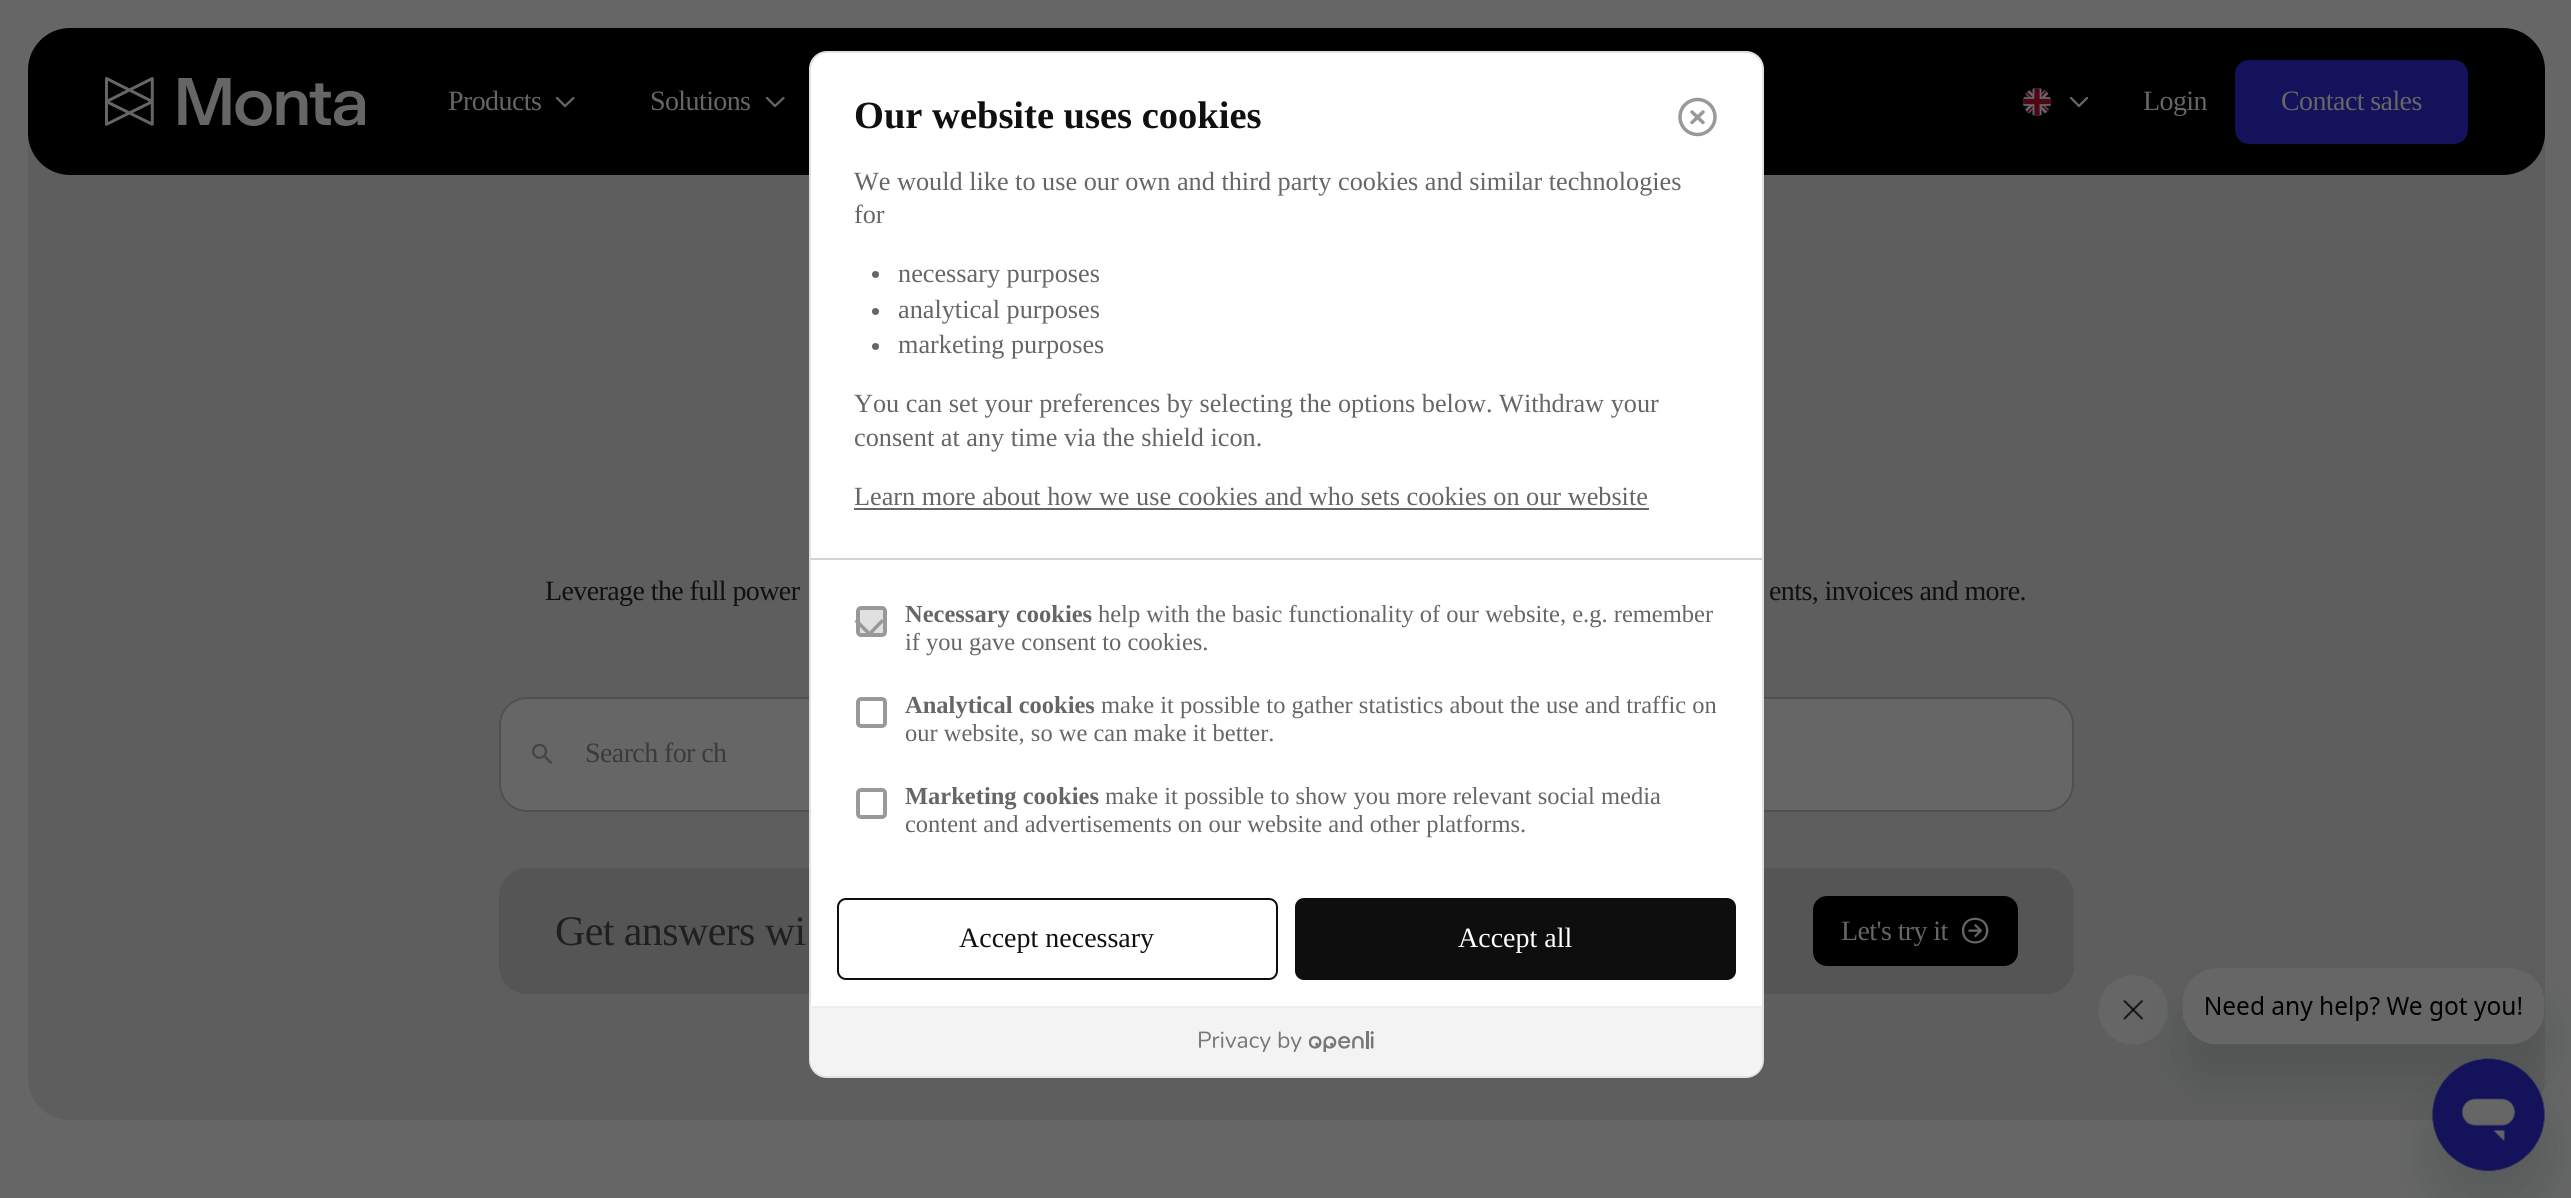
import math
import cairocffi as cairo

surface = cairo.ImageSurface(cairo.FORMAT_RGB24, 2571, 1198)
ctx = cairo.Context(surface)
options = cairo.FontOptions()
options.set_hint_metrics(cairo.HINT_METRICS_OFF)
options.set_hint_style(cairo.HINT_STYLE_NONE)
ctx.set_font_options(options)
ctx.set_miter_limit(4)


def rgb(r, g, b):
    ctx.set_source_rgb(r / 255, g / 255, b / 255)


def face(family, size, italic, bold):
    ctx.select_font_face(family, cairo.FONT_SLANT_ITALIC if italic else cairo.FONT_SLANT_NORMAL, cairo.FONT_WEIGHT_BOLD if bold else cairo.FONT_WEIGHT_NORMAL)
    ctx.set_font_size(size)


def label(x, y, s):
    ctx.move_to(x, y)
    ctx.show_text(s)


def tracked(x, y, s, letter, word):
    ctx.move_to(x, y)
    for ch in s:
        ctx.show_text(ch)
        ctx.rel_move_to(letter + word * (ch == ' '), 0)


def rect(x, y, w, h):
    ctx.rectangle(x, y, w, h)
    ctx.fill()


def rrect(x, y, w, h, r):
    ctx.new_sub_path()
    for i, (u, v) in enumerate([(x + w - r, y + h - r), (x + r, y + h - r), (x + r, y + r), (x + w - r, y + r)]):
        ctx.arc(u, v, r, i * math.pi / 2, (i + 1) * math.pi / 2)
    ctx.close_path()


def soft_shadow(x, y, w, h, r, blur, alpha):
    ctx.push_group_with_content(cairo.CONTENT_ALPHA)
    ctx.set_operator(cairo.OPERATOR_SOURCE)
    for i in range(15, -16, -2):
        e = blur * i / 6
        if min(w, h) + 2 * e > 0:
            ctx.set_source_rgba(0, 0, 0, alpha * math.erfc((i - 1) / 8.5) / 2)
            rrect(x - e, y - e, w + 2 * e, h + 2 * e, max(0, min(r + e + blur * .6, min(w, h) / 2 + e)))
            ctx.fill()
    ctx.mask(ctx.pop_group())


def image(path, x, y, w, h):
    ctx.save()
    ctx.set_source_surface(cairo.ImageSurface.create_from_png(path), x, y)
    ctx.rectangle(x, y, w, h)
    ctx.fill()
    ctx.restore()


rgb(102, 102, 102)
ctx.paint()
rgb(94, 94, 94)
rrect(28, 28, 2517, 1092, 42)
ctx.fill()
rgb(0, 0, 0)
rrect(28, 28, 2517, 147, 42)
ctx.fill()
image('image0.png', 105, 77, 260, 49)
face('Liberation Serif', 28, 0, 0)
rgb(102, 102, 102)
tracked(448, 110, 'Products', -0.6, 0)
ctx.new_path()
ctx.move_to(573.5, 98)
ctx.line_to(565, 106)
ctx.line_to(557, 98)
ctx.set_line_width(2.3)
ctx.set_line_cap(cairo.LINE_CAP_ROUND)
ctx.set_line_join(cairo.LINE_JOIN_ROUND)
ctx.stroke()
tracked(650, 110, 'Solutions', -0.6, 0)
ctx.new_path()
ctx.move_to(783.5, 98)
ctx.line_to(775, 106)
ctx.line_to(767, 98)
ctx.stroke()
image('image1.png', 2023, 88, 28, 28)
ctx.new_path()
ctx.move_to(2087, 98)
ctx.line_to(2079, 106)
ctx.line_to(2071, 98)
ctx.stroke()
tracked(2143, 110, 'Login', -0.6, 0)
rgb(19, 18, 90)
rrect(2235, 60, 233, 84, 14)
ctx.fill()
rgb(102, 102, 102)
tracked(2281, 110, 'Contact sales', -0.6, 0)
rgb(16, 16, 16)
tracked(545, 600, 'Leverage the full power', -0.6, 0)
tracked(1769, 600, 'ents, invoices and more.', -0.6, 0)
rgb(102, 102, 102)
rrect(500, 698, 1573, 113, 27)
ctx.fill_preserve()
rgb(78, 80, 88)
ctx.set_line_width(2)
ctx.set_line_cap(cairo.LINE_CAP_BUTT)
ctx.set_line_join(cairo.LINE_JOIN_MITER)
ctx.stroke()
image('image2.png', 532, 743, 21, 21)
rgb(59, 59, 59)
tracked(585, 762, 'Search for ch', -0.6, 0)
rgb(85, 85, 85)
rrect(499, 868, 1575, 126, 28)
ctx.fill()
face('Liberation Serif', 42, 0, 0)
rgb(32, 32, 32)
tracked(555, 945, 'Get answers wi', -0.6, 0)
rgb(0, 0, 0)
rrect(1813, 896, 205, 70, 14)
ctx.fill()
face('Liberation Serif', 28, 0, 0)
rgb(102, 102, 102)
tracked(1841, 940, 'Let\'s try it', -0.6, 0)
image('image3.png', 1962, 917, 27, 27)
rgb(255, 255, 255)
rrect(810, 52, 953, 1025, 17)
ctx.fill_preserve()
rgb(225, 225, 225)
ctx.stroke()
rgb(211, 211, 211)
rect(810, 558, 952, 2)
face('Liberation Serif', 38.5, 0, 1)
rgb(16, 16, 16)
label(854, 128, 'Our website uses cookies')
ctx.new_path()
ctx.arc(1697.5, 117, 17.5, 0, 2 * math.pi)
rgb(153, 153, 153)
ctx.set_line_width(3.5)
ctx.stroke()
ctx.new_path()
ctx.move_to(1703, 112)
ctx.line_to(1692, 122.5)
ctx.move_to(1692, 112)
ctx.line_to(1703, 122.5)
ctx.set_line_cap(cairo.LINE_CAP_ROUND)
ctx.set_line_join(cairo.LINE_JOIN_ROUND)
ctx.stroke()
face('Liberation Serif', 26.25, 0, 0)
rgb(102, 102, 102)
label(854, 190, 'We would like to use our own and third party cookies and similar technologies')
label(854, 223, 'for')
ctx.new_path()
ctx.arc(875.5, 274.5, 3.5, 0, 2 * math.pi)
ctx.fill()
label(898, 282, 'necessary purposes')
ctx.new_path()
ctx.arc(875.5, 311.5, 3.5, 0, 2 * math.pi)
ctx.fill()
label(898, 318, 'analytical purposes')
ctx.new_path()
ctx.arc(875.5, 346.5, 3.5, 0, 2 * math.pi)
ctx.fill()
label(898, 353, 'marketing purposes')
label(854, 412, 'You can set your preferences by selecting the options below. Withdraw your')
label(854, 446, 'consent at any time via the shield icon.')
label(854, 505, 'Learn more about how we use cookies and who sets cookies on our website')
rect(854, 508, 795, 2)
rgb(224, 224, 224)
rrect(858, 608, 27, 27, 3)
ctx.fill_preserve()
rgb(153, 153, 153)
ctx.set_line_width(4)
ctx.set_line_cap(cairo.LINE_CAP_BUTT)
ctx.set_line_join(cairo.LINE_JOIN_MITER)
ctx.stroke()
ctx.new_path()
ctx.move_to(881.5, 619)
ctx.line_to(884, 621.5)
ctx.line_to(869.5, 636.5)
ctx.line_to(867, 634)
ctx.close_path()
ctx.fill()
ctx.new_path()
ctx.move_to(857, 619)
ctx.line_to(872, 634)
ctx.line_to(869.5, 636.5)
ctx.line_to(854.5, 621.5)
ctx.close_path()
ctx.fill()
face('Liberation Serif', 24.5, 0, 1)
rgb(102, 102, 102)
label(905, 622, 'Necessary cookies')
face('Liberation Serif', 24.5, 0, 0)
label(1098, 622, 'help with the basic functionality of our website, e.g. remember')
label(905, 650, 'if you gave consent to cookies.')
rrect(858, 699, 27, 27, 3)
rgb(153, 153, 153)
ctx.stroke()
face('Liberation Serif', 24.5, 0, 1)
rgb(102, 102, 102)
label(905, 713, 'Analytical cookies')
face('Liberation Serif', 24.5, 0, 0)
label(1101, 713, 'make it possible to gather statistics about the use and traffic on')
label(905, 741, 'our website, so we can make it better.')
rrect(858, 790, 27, 27, 3)
rgb(153, 153, 153)
ctx.stroke()
face('Liberation Serif', 24.5, 0, 1)
rgb(102, 102, 102)
label(905, 804, 'Marketing cookies')
face('Liberation Serif', 24.5, 0, 0)
label(1105, 804, 'make it possible to show you more relevant social media')
label(905, 832, 'content and advertisements on our website and other platforms.')
rrect(838, 899, 439, 80, 8)
rgb(14, 14, 14)
ctx.set_line_width(2)
ctx.stroke()
face('Liberation Serif', 28, 0, 0)
rgb(16, 16, 16)
label(959, 947, 'Accept necessary')
rgb(14, 14, 14)
rrect(1296, 899, 439, 80, 8)
ctx.fill_preserve()
ctx.stroke()
rgb(255, 255, 255)
label(1458, 947, 'Accept all')
rgb(243, 243, 243)
ctx.new_path()
ctx.move_to(810, 1006)
ctx.line_to(1762, 1006)
ctx.line_to(1762, 1058)
ctx.curve_to(1762, 1068, 1754, 1076, 1744, 1076)
ctx.line_to(828, 1076)
ctx.curve_to(818, 1076, 810, 1068, 810, 1058)
ctx.close_path()
ctx.fill()
rgb(238, 238, 238)
rect(810, 1006, 952, 2)
image('image4.png', 1199, 1031, 175, 21)
image('image6.png', 2098, 974, 71, 71)
rgb(9, 29, 31)
soft_shadow(2182, 1003, 363, 77, 35, 26, 0.15)
image('image5.png', 2182, 968, 362, 77)
soft_shadow(2433, 1094, 112, 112, 56, 26, 0.15)
image('image7.png', 2432, 1058, 113, 113)
surface.write_to_png('render.png')
